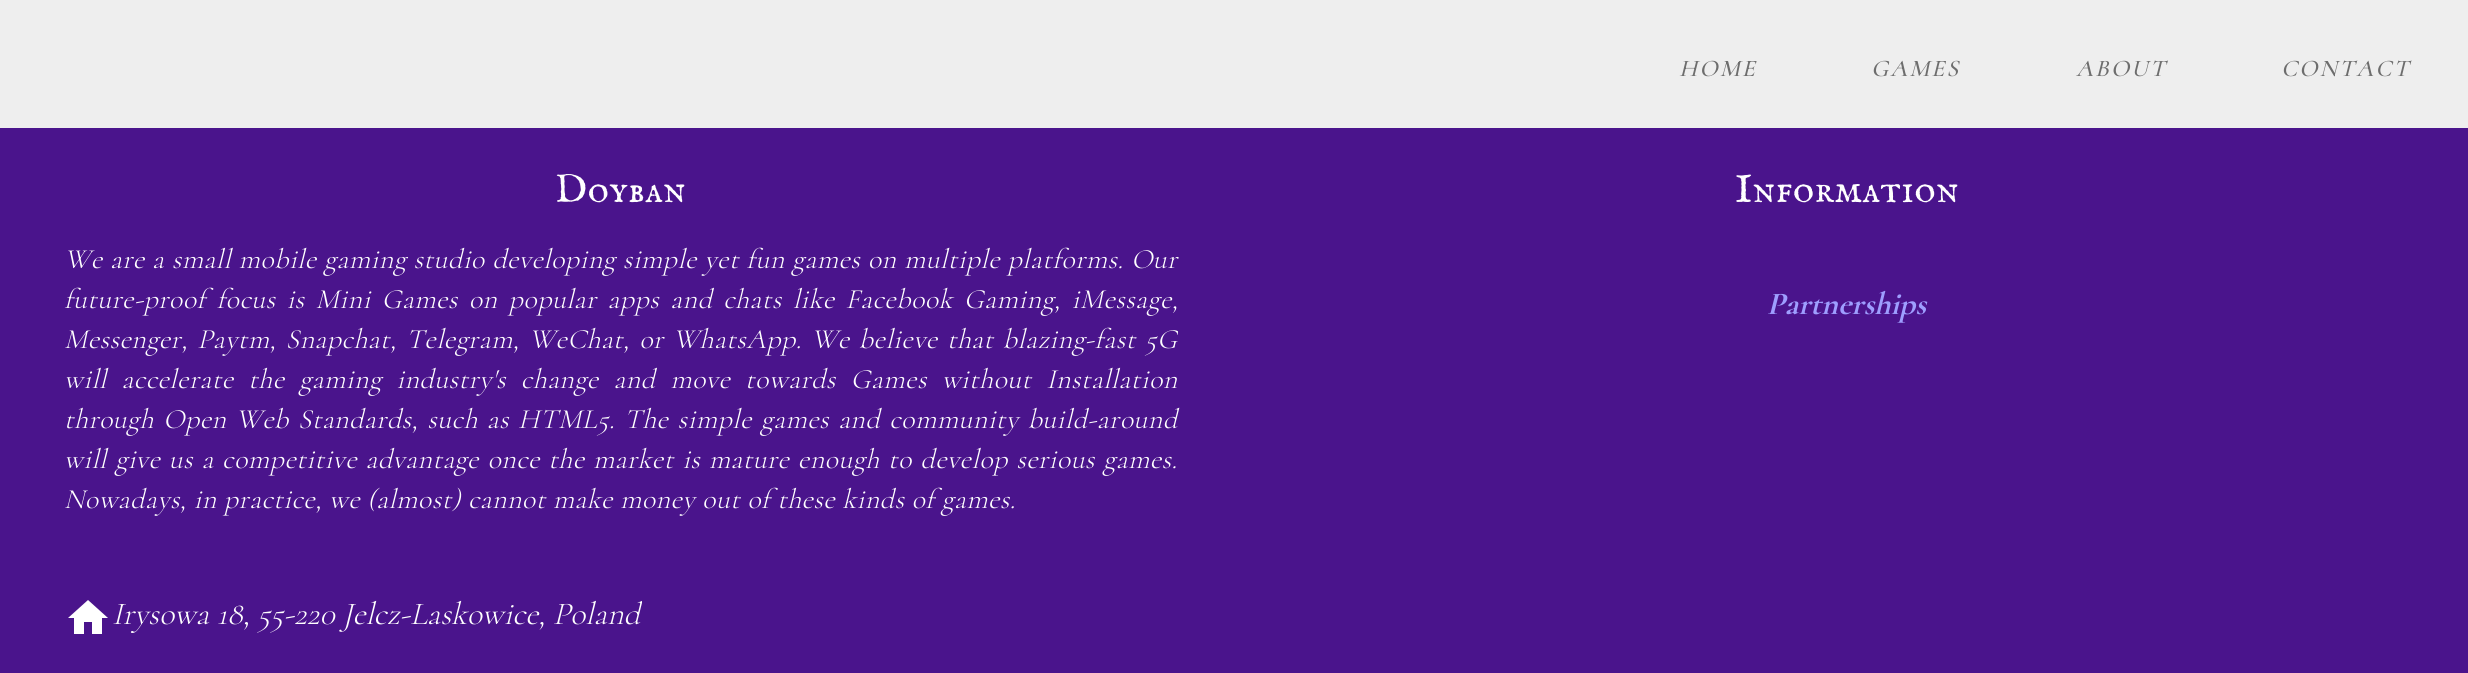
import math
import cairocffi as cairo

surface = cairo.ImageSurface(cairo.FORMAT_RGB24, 2468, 673)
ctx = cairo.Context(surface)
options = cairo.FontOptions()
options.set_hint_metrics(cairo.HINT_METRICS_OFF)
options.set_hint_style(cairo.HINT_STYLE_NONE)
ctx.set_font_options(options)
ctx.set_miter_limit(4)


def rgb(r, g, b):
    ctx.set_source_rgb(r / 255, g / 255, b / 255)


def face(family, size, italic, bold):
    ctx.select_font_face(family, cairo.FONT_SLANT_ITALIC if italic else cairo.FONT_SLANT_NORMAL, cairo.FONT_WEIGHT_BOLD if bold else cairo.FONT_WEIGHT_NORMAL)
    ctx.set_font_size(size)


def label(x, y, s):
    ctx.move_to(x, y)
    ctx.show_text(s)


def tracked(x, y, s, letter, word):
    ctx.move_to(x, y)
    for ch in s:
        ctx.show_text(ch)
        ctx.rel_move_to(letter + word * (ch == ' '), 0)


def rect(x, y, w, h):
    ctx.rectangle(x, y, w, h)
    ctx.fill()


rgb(238, 238, 238)
ctx.paint()
face('Cormorant Medium', 24, 1, 0)
rgb(109, 109, 109)
tracked(1679, 76, 'HOME', 2, 0)
tracked(1871, 76, 'GAMES', 2, 0)
tracked(2076, 76, 'ABOUT', 2, 0)
tracked(2281, 76, 'CONTACT', 2, 0)
gradient = cairo.LinearGradient(1234, 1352, 1234, 128)
gradient.add_color_stop_rgba(0, 0.612, 0.153, 0.69, 1)
gradient.add_color_stop_rgba(0.18, 0.29, 0.078, 0.549, 1)
ctx.set_source(gradient)
rect(0, 128, 2468, 545)
face('IM FELL English SC', 40, 0, 0)
rgb(255, 255, 255)
tracked(555, 202, 'Doyban', 0.5, 0)
face('Cormorant Light', 28, 1, 0)
tracked(64, 268, 'We are a small mobile gaming studio developing simple yet fun games on multiple platforms. Our', 0.5, 0.4)
tracked(64, 308, 'future-proof focus is Mini Games on popular apps and chats like Facebook Gaming, iMessage,', 0.5, 3.9)
tracked(64, 348, 'Messenger, Paytm, Snapchat, Telegram, WeChat, or WhatsApp. We believe that blazing-fast 5G', 0.5, 2.25)
tracked(64, 388, 'will accelerate the gaming industry\'s change and move towards Games without Installation', 0.5, 7.75)
tracked(64, 428, 'through Open Web Standards, such as HTML5. The simple games and community build-around', 0.5, 2)
tracked(64, 468, 'will give us a competitive advantage once the market is mature enough to develop serious games.', 0.5, 1.4)
tracked(64, 508, 'Nowadays, in practice, we (almost) cannot make money out of these kinds of games.', 0.5, 0)
ctx.new_path()
ctx.move_to(84, 634)
ctx.line_to(84, 622)
ctx.line_to(92, 622)
ctx.line_to(92, 634)
ctx.line_to(102, 634)
ctx.line_to(102, 618)
ctx.line_to(108, 618)
ctx.line_to(88, 600)
ctx.line_to(68, 618)
ctx.line_to(74, 618)
ctx.line_to(74, 634)
ctx.close_path()
ctx.fill()
face('Cormorant Light', 32, 1, 0)
label(112, 624, 'Irysowa 18, 55-220 Jelcz-Laskowice, Poland')
face('IM FELL English SC', 40, 0, 0)
tracked(1735, 202, 'Information', 0.5, 0)
face('Cormorant', 32, 1, 1)
rgb(158, 158, 255)
label(1767, 314, 'Partnerships')
surface.write_to_png('render.png')
